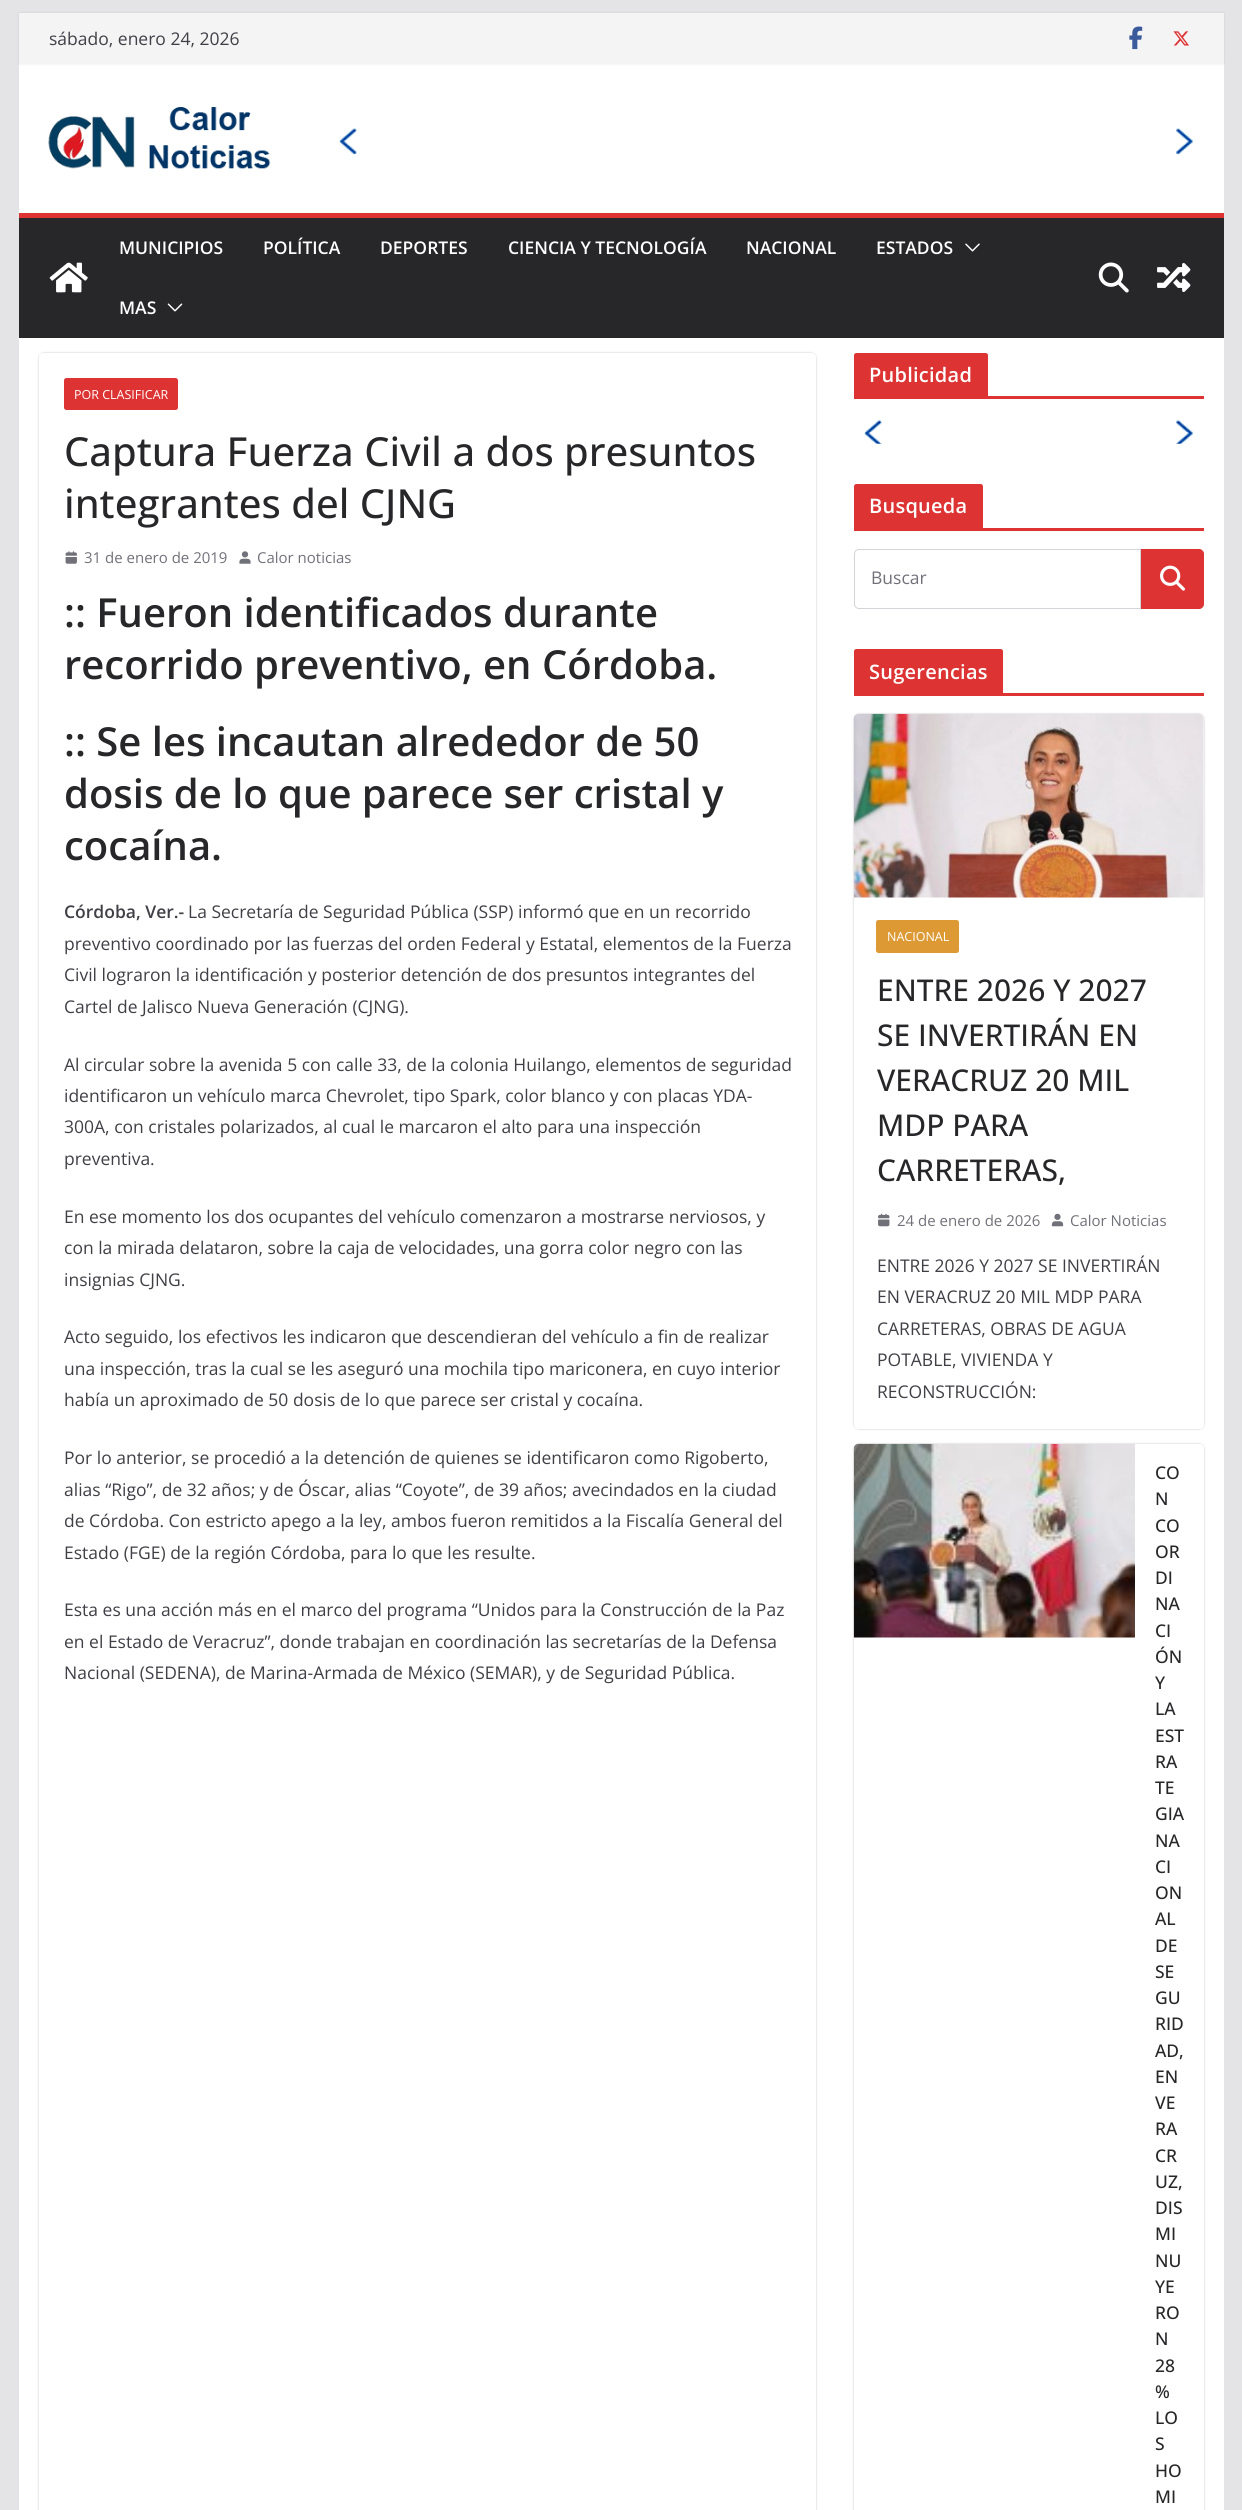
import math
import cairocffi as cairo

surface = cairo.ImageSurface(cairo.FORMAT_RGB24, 1242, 2510)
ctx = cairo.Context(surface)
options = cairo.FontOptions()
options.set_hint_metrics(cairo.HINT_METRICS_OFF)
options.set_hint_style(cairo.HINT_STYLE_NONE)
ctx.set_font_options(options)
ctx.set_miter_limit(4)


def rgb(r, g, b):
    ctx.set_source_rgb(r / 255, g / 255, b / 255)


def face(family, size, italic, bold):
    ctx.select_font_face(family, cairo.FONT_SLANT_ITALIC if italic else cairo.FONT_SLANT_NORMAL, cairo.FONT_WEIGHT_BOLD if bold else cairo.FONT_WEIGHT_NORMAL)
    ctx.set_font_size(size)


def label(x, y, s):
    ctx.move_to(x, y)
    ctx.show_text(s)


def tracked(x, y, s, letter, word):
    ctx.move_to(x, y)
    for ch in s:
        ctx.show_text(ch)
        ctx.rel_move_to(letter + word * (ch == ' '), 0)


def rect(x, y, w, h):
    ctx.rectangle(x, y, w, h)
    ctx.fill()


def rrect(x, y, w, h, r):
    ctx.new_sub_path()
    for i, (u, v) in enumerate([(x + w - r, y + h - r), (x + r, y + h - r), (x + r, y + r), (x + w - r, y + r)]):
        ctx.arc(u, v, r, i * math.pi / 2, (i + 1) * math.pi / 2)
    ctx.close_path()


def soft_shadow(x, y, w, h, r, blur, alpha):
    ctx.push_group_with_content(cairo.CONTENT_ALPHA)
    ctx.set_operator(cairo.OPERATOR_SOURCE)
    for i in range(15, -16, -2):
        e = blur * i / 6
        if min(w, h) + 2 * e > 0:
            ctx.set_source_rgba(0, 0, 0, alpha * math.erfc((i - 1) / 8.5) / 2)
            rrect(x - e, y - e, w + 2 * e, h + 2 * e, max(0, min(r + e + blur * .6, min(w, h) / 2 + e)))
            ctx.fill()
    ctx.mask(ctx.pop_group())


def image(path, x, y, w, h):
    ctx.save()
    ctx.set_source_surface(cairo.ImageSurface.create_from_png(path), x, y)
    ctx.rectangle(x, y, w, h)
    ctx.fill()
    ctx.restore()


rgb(228, 228, 231)
ctx.paint()
rgb(255, 255, 255)
rect(19, 64, 1205, 149)
rgb(0, 0, 0)
soft_shadow(19, 13, 1205, 51, 0, 1, 0.1)
rgb(244, 244, 245)
rect(19, 13, 1205, 51)
face('Open Sans', 17.5, 0, 0)
rgb(63, 63, 70)
label(49, 45, 'sábado, enero 24, 2026')
image('image0.png', 1129, 26, 14, 24)
image('image1.png', 1173, 31, 16, 15)
image('image2.png', 48, 107, 223, 62)
image('image3.png', 339, 128, 18, 27)
image('image4.png', 1176, 128, 17, 27)
rgb(39, 39, 42)
rect(19, 218, 1205, 120)
rgb(221, 51, 51)
rect(19, 213, 1205, 5)
image('image5.png', 49, 262, 39, 31)
face('Open Sans SemiBold', 17.5, 0, 0)
rgb(255, 255, 255)
label(119, 254, 'MUNICIPIOS')
label(263, 254, 'POLÍTICA')
label(380, 254, 'DEPORTES')
label(508, 254, 'CIENCIA Y TECNOLOGÍA')
label(746, 254, 'NACIONAL')
label(876, 254, 'ESTADOS')
image('image6.png', 965, 243, 15, 9)
label(119, 314, 'MAS')
image('image7.png', 167, 303, 16, 9)
image('image8.png', 1098, 262, 31, 31)
image('image9.png', 1157, 263, 34, 29)
rect(19, 338, 1205, 2172)
ctx.save()
ctx.set_fill_rule(cairo.FILL_RULE_EVEN_ODD)
ctx.new_path()
ctx.move_to(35, 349)
ctx.line_to(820, 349)
ctx.line_to(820, 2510)
ctx.line_to(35, 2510)
ctx.close_path()
ctx.move_to(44, 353)
ctx.line_to(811, 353)
ctx.curve_to(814, 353, 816, 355, 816, 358)
ctx.line_to(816, 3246)
ctx.curve_to(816, 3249, 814, 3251, 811, 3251)
ctx.line_to(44, 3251)
ctx.curve_to(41, 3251, 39, 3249, 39, 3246)
ctx.line_to(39, 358)
ctx.curve_to(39, 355, 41, 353, 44, 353)
ctx.close_path()
ctx.clip()
rgb(0, 0, 0)
soft_shadow(39, 353, 777, 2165, 5, 1, 0.24)
ctx.restore()
rgb(221, 51, 51)
rrect(64, 378, 114, 32, 2.5)
ctx.fill()
face('Open Sans', 12.5, 0, 0)
rgb(255, 255, 255)
label(74, 399, 'POR CLASIFICAR')
face('Open Sans Medium', 40, 0, 0)
rgb(39, 39, 42)
label(64, 466, 'Captura Fuerza Civil a dos presuntos')
label(64, 518, 'integrantes del CJNG')
image('image10.png', 65, 551, 12, 13)
face('Open Sans', 15, 0, 0)
rgb(113, 113, 122)
label(84, 563, '31 de enero de 2019')
image('image11.png', 239, 551, 12, 13)
label(257, 563, 'Calor noticias')
face('Open Sans SemiBold', 40, 0, 0)
rgb(39, 39, 42)
label(64, 627, ':: Fueron identificados durante')
label(64, 679, 'recorrido preventivo, en Córdoba.')
label(64, 756, ':: Se les incautan alrededor de 50')
label(64, 808, 'dosis de lo que parece ser cristal y')
label(64, 860, 'cocaína.')
face('Open Sans SemiBold', 17.5, 0, 0)
rgb(63, 63, 70)
label(64, 918, 'Córdoba, Ver.-')
face('Open Sans', 17.5, 0, 0)
label(188, 918, 'La Secretaría de Seguridad Pública (SSP) informó que en un recorrido')
label(64, 950, 'preventivo coordinado por las fuerzas del orden Federal y Estatal, elementos de la Fuerza')
label(64, 981, 'Civil lograron la identificación y posterior detención de dos presuntos integrantes del')
label(64, 1013, 'Cartel de Jalisco Nueva Generación (CJNG).')
label(64, 1071, 'Al circular sobre la avenida 5 con calle 33, de la colonia Huilango, elementos de seguridad')
label(64, 1102, 'identificaron un vehículo marca Chevrolet, tipo Spark, color blanco y con placas YDA-')
label(64, 1133, '300A, con cristales polarizados, al cual le marcaron el alto para una inspección')
label(64, 1165, 'preventiva.')
label(64, 1223, 'En ese momento los dos ocupantes del vehículo comenzaron a mostrarse nerviosos, y')
label(64, 1254, 'con la mirada delataron, sobre la caja de velocidades, una gorra color negro con las')
label(64, 1286, 'insignias CJNG.')
label(64, 1343, 'Acto seguido, los efectivos les indicaron que descendieran del vehículo a fin de realizar')
label(64, 1375, 'una inspección, tras la cual se les aseguró una mochila tipo mariconera, en cuyo interior')
label(64, 1406, 'había un aproximado de 50 dosis de lo que parece ser cristal y cocaína.')
label(64, 1464, 'Por lo anterior, se procedió a la detención de quienes se identificaron como Rigoberto,')
label(64, 1496, 'alias “Rigo”, de 32 años; y de Óscar, alias “Coyote”, de 39 años; avecindados en la ciudad')
label(64, 1527, 'de Córdoba. Con estricto apego a la ley, ambos fueron remitidos a la Fiscalía General del')
label(64, 1559, 'Estado (FGE) de la región Córdoba, para lo que les resulte.')
label(64, 1616, 'Esta es una acción más en el marco del programa “Unidos para la Construcción de la Paz')
label(64, 1648, 'en el Estado de Veracruz”, donde trabajan en coordinación las secretarías de la Defensa')
label(64, 1679, 'Nacional (SEDENA), de Marina-Armada de México (SEMAR), y de Seguridad Pública.')
rgb(221, 51, 51)
rect(854, 396, 350, 3)
ctx.new_path()
ctx.move_to(856.5, 353)
ctx.line_to(985.5, 353)
ctx.curve_to(987, 353, 988, 354, 988, 355.5)
ctx.line_to(988, 396)
ctx.line_to(854, 396)
ctx.line_to(854, 355.5)
ctx.curve_to(854, 354, 855, 353, 856.5, 353)
ctx.close_path()
ctx.fill()
face('Open Sans SemiBold', 20, 0, 0)
rgb(255, 255, 255)
tracked(869, 382, 'Publicidad', 0.25, 0)
image('image12.png', 864, 420, 18, 24)
image('image13.png', 1176, 420, 17, 24)
rgb(221, 51, 51)
rect(854, 528, 350, 3)
ctx.new_path()
ctx.move_to(856.5, 484)
ctx.line_to(980.5, 484)
ctx.curve_to(982, 484, 983, 485, 983, 486.5)
ctx.line_to(983, 528)
ctx.line_to(854, 528)
ctx.line_to(854, 486.5)
ctx.curve_to(854, 485, 855, 484, 856.5, 484)
ctx.close_path()
ctx.fill()
rgb(255, 255, 255)
tracked(869, 513, 'Busqueda', 0.25, 0)
ctx.new_path()
ctx.move_to(859, 549.5)
ctx.line_to(1140.5, 549.5)
ctx.line_to(1140.5, 608.5)
ctx.line_to(859, 608.5)
ctx.curve_to(856.5, 608.5, 854.5, 606.5, 854.5, 604)
ctx.line_to(854.5, 554)
ctx.curve_to(854.5, 551.5, 856.5, 549.5, 859, 549.5)
ctx.close_path()
rgb(212, 212, 216)
ctx.set_line_width(1)
ctx.stroke()
face('Open Sans', 17.5, 0, 0)
rgb(113, 113, 122)
label(871, 584, 'Buscar')
rgb(221, 51, 51)
ctx.new_path()
ctx.move_to(1141.5, 549.5)
ctx.line_to(1199, 549.5)
ctx.curve_to(1201.5, 549.5, 1203.5, 551.5, 1203.5, 554)
ctx.line_to(1203.5, 604)
ctx.curve_to(1203.5, 606.5, 1201.5, 608.5, 1199, 608.5)
ctx.line_to(1141.5, 608.5)
ctx.close_path()
ctx.fill_preserve()
ctx.stroke()
image('image14.png', 1160, 565, 25, 26)
rect(854, 693, 350, 3)
ctx.new_path()
ctx.move_to(856.5, 649)
ctx.line_to(1000.5, 649)
ctx.curve_to(1002, 649, 1003, 650, 1003, 651.5)
ctx.line_to(1003, 693)
ctx.line_to(854, 693)
ctx.line_to(854, 651.5)
ctx.curve_to(854, 650, 855, 649, 856.5, 649)
ctx.close_path()
ctx.fill()
face('Open Sans SemiBold', 20, 0, 0)
rgb(255, 255, 255)
tracked(869, 679, 'Sugerencias', 0.25, 0)
ctx.save()
ctx.set_fill_rule(cairo.FILL_RULE_EVEN_ODD)
ctx.new_path()
ctx.move_to(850, 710)
ctx.line_to(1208, 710)
ctx.line_to(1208, 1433)
ctx.line_to(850, 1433)
ctx.close_path()
ctx.move_to(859, 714)
ctx.line_to(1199, 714)
ctx.curve_to(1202, 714, 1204, 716, 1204, 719)
ctx.line_to(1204, 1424)
ctx.curve_to(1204, 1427, 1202, 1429, 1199, 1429)
ctx.line_to(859, 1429)
ctx.curve_to(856, 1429, 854, 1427, 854, 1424)
ctx.line_to(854, 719)
ctx.curve_to(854, 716, 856, 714, 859, 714)
ctx.close_path()
ctx.clip()
rgb(0, 0, 0)
soft_shadow(854, 714, 350, 715, 5, 1, 0.24)
ctx.restore()
image('image15.png', 853, 713, 351, 185)
rgb(221, 153, 51)
rrect(876, 920, 83, 33, 2.5)
ctx.fill()
face('Open Sans', 12.5, 0, 0)
rgb(255, 255, 255)
label(887, 941, 'NACIONAL')
face('Open Sans Medium', 30, 0, 0)
rgb(39, 39, 42)
label(877, 1001, 'ENTRE 2026 Y 2027')
label(877, 1046, 'SE INVERTIRÁN EN')
label(877, 1091, 'VERACRUZ 20 MIL')
label(877, 1136, 'MDP PARA')
label(877, 1181, 'CARRETERAS,')
image('image16.png', 878, 1213, 12, 14)
face('Open Sans', 15, 0, 0)
rgb(113, 113, 122)
label(897, 1226, '24 de enero de 2026')
image('image17.png', 1051, 1213, 13, 14)
label(1070, 1226, 'Calor Noticias')
face('Open Sans', 17.5, 0, 0)
rgb(63, 63, 70)
label(877, 1272, 'ENTRE 2026 Y 2027 SE INVERTIRÁN')
label(877, 1303, 'EN VERACRUZ 20 MIL MDP PARA')
label(877, 1335, 'CARRETERAS, OBRAS DE AGUA')
label(877, 1366, 'POTABLE, VIVIENDA Y')
label(877, 1398, 'RECONSTRUCCIÓN:')
ctx.save()
ctx.set_fill_rule(cairo.FILL_RULE_EVEN_ODD)
ctx.new_path()
ctx.move_to(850, 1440)
ctx.line_to(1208, 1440)
ctx.line_to(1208, 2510)
ctx.line_to(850, 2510)
ctx.close_path()
ctx.move_to(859, 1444)
ctx.line_to(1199, 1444)
ctx.curve_to(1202, 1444, 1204, 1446, 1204, 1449)
ctx.line_to(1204, 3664)
ctx.curve_to(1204, 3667, 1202, 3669, 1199, 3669)
ctx.line_to(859, 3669)
ctx.curve_to(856, 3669, 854, 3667, 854, 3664)
ctx.line_to(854, 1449)
ctx.curve_to(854, 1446, 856, 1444, 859, 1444)
ctx.close_path()
ctx.clip()
rgb(0, 0, 0)
soft_shadow(854, 1444, 350, 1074, 5, 1, 0.24)
ctx.restore()
image('image18.png', 853, 1443, 282, 195)
face('Open Sans Medium', 17.5, 0, 0)
rgb(39, 39, 42)
label(1155, 1479, 'CO')
label(1155, 1505, 'N')
label(1155, 1532, 'CO')
label(1155, 1558, 'OR')
label(1155, 1584, 'DI')
label(1155, 1610, 'NA')
label(1155, 1637, 'CI')
label(1155, 1663, 'ÓN')
label(1155, 1689, 'Y')
label(1155, 1715, 'LA')
label(1155, 1742, 'EST')
label(1155, 1768, 'RA')
label(1155, 1794, 'TE')
label(1155, 1820, 'GIA')
label(1155, 1847, 'NA')
label(1155, 1873, 'CI')
label(1155, 1899, 'ON')
label(1155, 1925, 'AL')
label(1155, 1952, 'DE')
label(1155, 1978, 'SE')
label(1155, 2004, 'GU')
label(1155, 2030, 'RID')
label(1155, 2057, 'AD,')
label(1155, 2083, 'EN')
label(1155, 2109, 'VE')
label(1155, 2135, 'RA')
label(1155, 2162, 'CR')
label(1155, 2188, 'UZ,')
label(1155, 2214, 'DIS')
label(1155, 2240, 'MI')
label(1155, 2267, 'NU')
label(1155, 2293, 'YE')
label(1155, 2319, 'RO')
label(1155, 2345, 'N')
label(1155, 2372, '28')
label(1155, 2398, '%')
label(1155, 2424, 'LO')
label(1155, 2450, 'S')
label(1155, 2477, 'HO')
label(1155, 2503, 'MI')
surface.write_to_png('render.png')
